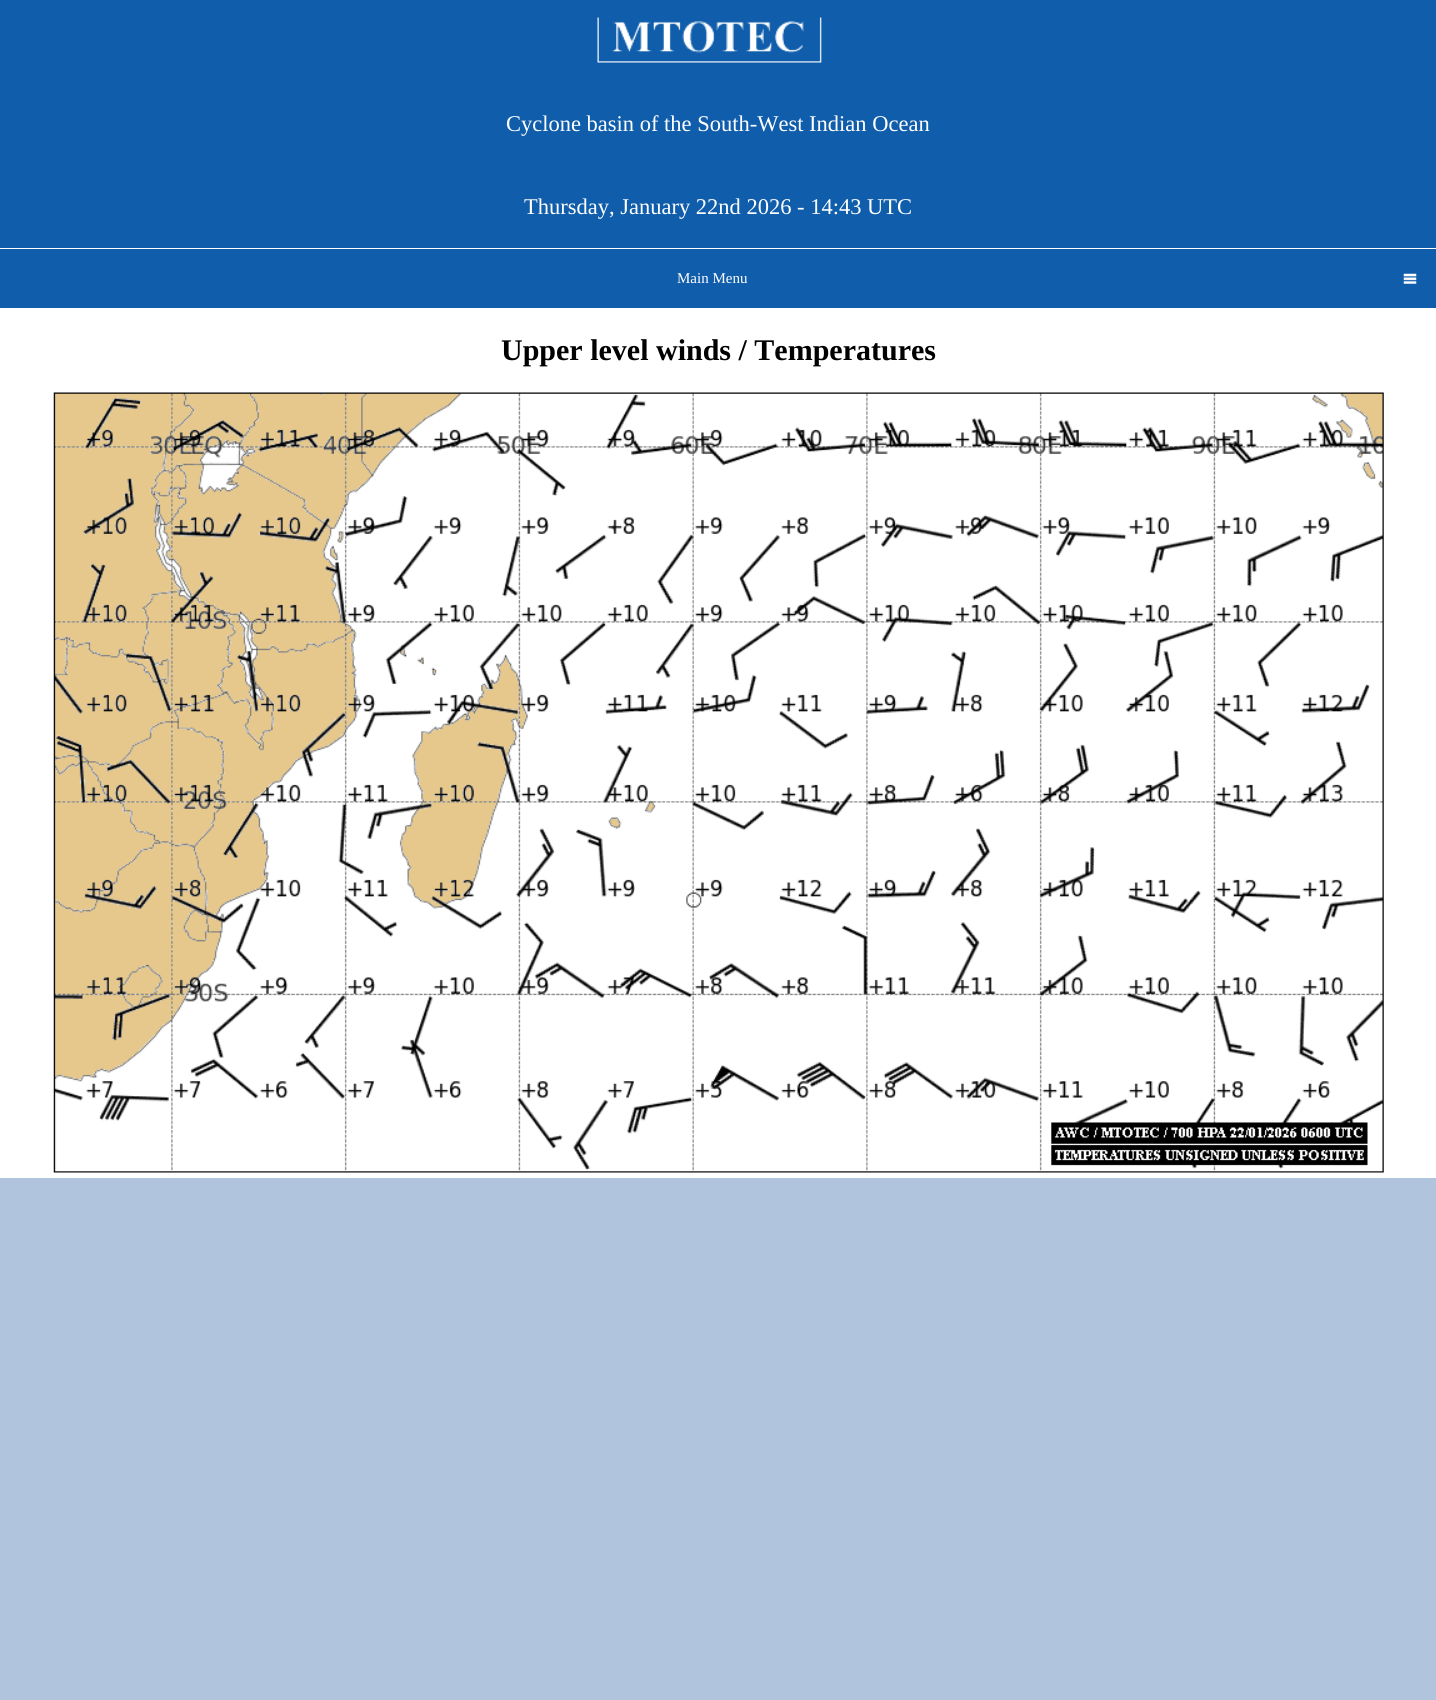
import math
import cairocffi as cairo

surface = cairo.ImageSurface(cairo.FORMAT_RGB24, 1436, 1700)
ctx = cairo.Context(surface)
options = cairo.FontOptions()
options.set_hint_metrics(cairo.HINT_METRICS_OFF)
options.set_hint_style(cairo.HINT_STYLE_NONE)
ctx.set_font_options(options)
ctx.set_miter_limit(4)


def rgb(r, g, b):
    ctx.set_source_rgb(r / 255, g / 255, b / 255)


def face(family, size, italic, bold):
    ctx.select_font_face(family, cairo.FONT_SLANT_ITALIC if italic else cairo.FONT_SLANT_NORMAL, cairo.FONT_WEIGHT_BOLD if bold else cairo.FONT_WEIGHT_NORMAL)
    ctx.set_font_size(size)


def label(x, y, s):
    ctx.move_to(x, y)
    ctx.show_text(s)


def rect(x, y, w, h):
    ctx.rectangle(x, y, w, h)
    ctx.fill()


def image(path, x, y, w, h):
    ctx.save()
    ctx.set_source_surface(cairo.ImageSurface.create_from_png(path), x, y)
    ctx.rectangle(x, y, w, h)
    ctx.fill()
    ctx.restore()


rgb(176, 196, 222)
ctx.paint()
rgb(15, 93, 171)
rect(0, 0, 1436, 248)
rgb(255, 255, 255)
rect(0, 248, 1436, 1)
image('image0.png', 597, 17, 225, 46)
face('Liberation Serif', 22.5, 0, 0)
label(506, 131, 'Cyclone basin of the South-West Indian Ocean')
label(524, 214, 'Thursday, January 22nd 2026 - 14:43 UTC')
rgb(15, 93, 171)
rect(0, 249, 1436, 59)
rgb(255, 255, 255)
rect(0, 308, 1436, 870)
face('Liberation Serif', 15, 0, 0)
label(677, 283, 'Main Menu')
image('image1.png', 1403, 273, 14, 11)
face('Liberation Serif', 30, 0, 1)
rgb(0, 0, 0)
label(501, 360, 'Upper level winds / Temperatures')
image('image2.png', 53, 392, 1331, 781)
surface.write_to_png('render.png')
